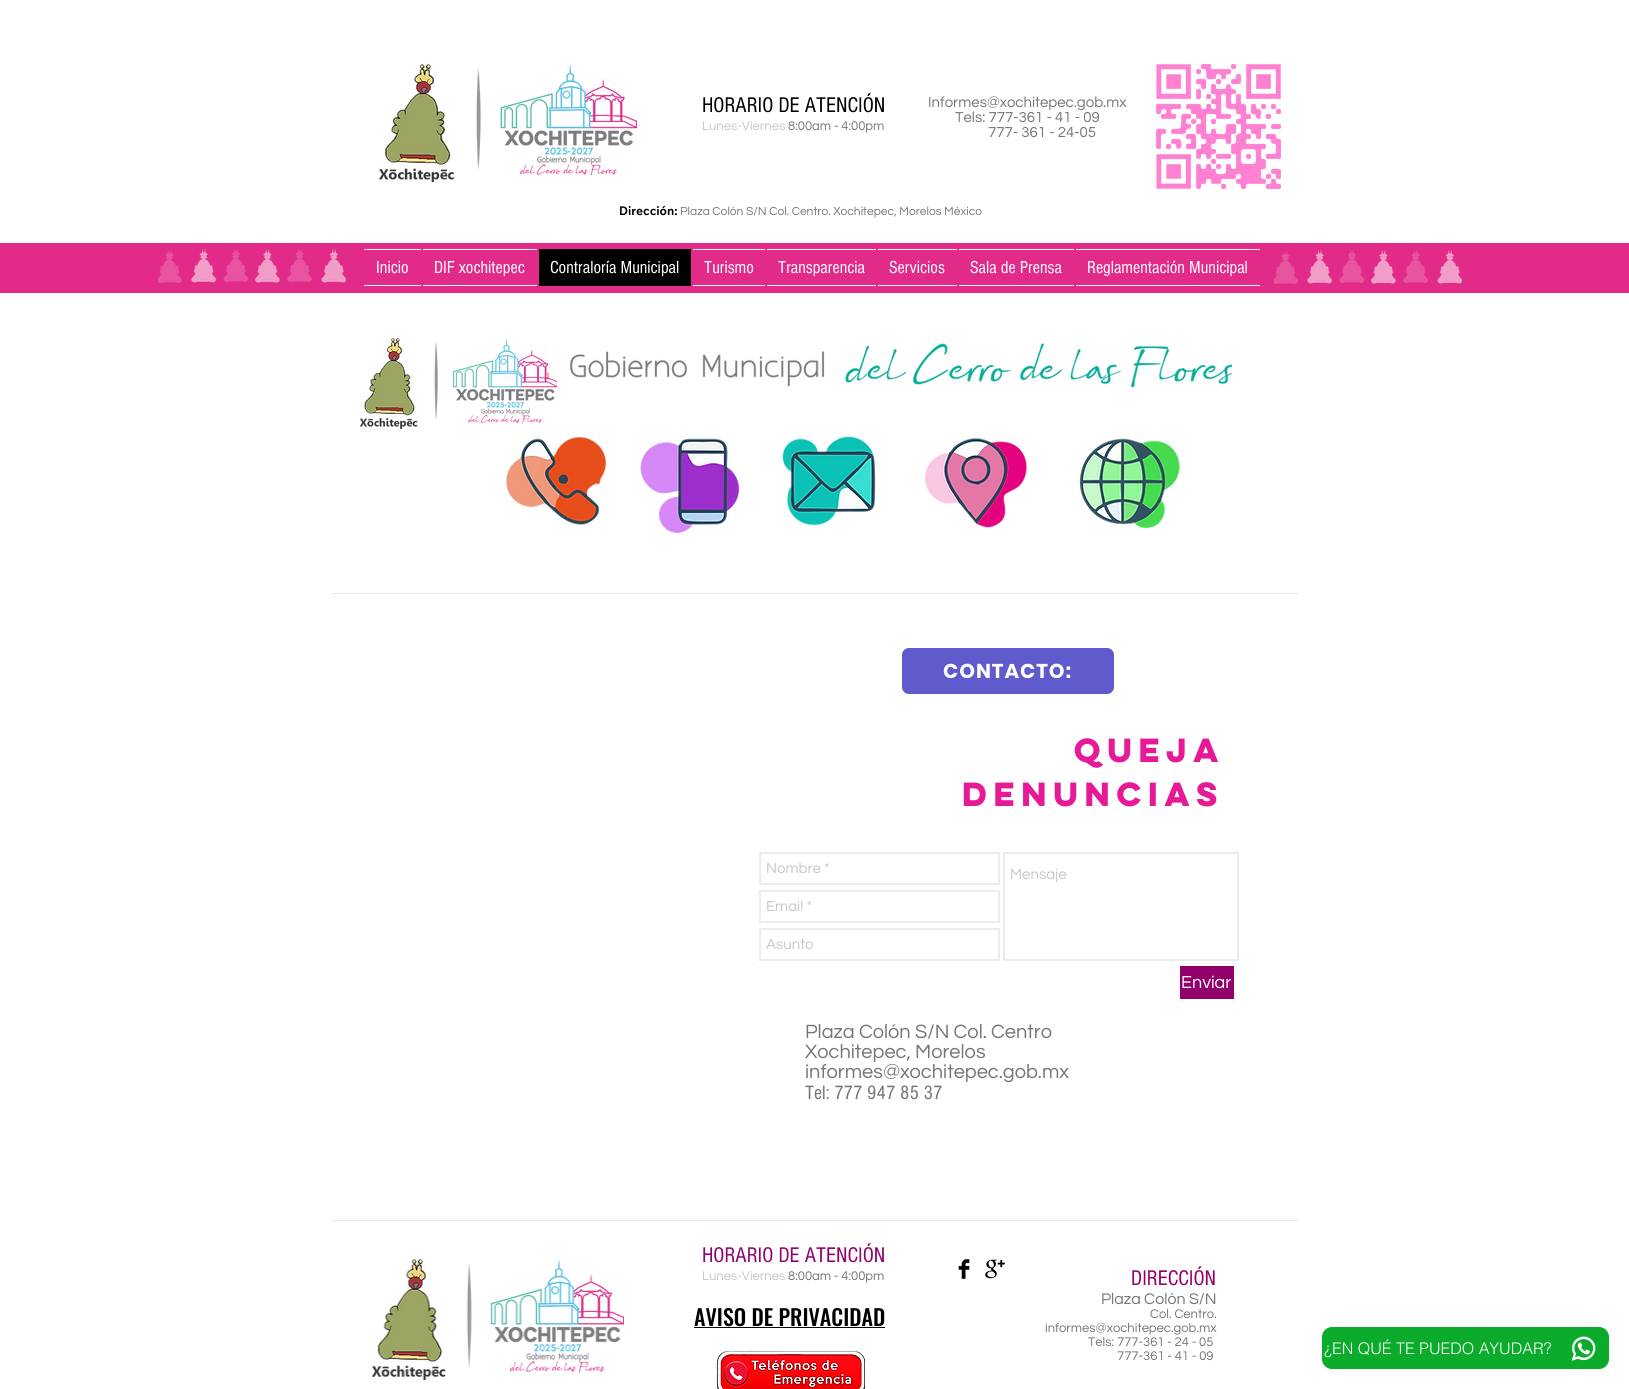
import math
import cairocffi as cairo

surface = cairo.ImageSurface(cairo.FORMAT_RGB24, 1629, 1389)
ctx = cairo.Context(surface)
options = cairo.FontOptions()
options.set_hint_metrics(cairo.HINT_METRICS_OFF)
options.set_hint_style(cairo.HINT_STYLE_NONE)
ctx.set_font_options(options)
ctx.set_miter_limit(4)


def rgb(r, g, b):
    ctx.set_source_rgb(r / 255, g / 255, b / 255)


def face(family, size, italic, bold):
    ctx.select_font_face(family, cairo.FONT_SLANT_ITALIC if italic else cairo.FONT_SLANT_NORMAL, cairo.FONT_WEIGHT_BOLD if bold else cairo.FONT_WEIGHT_NORMAL)
    ctx.set_font_size(size)


def label(x, y, s):
    ctx.move_to(x, y)
    ctx.show_text(s)


def tracked(x, y, s, letter, word):
    ctx.move_to(x, y)
    for ch in s:
        ctx.show_text(ch)
        ctx.rel_move_to(letter + word * (ch == ' '), 0)


def rect(x, y, w, h):
    ctx.rectangle(x, y, w, h)
    ctx.fill()


def rrect(x, y, w, h, r):
    ctx.new_sub_path()
    for i, (u, v) in enumerate([(x + w - r, y + h - r), (x + r, y + h - r), (x + r, y + r), (x + w - r, y + r)]):
        ctx.arc(u, v, r, i * math.pi / 2, (i + 1) * math.pi / 2)
    ctx.close_path()


def image(path, x, y, w, h):
    ctx.save()
    ctx.set_source_surface(cairo.ImageSurface.create_from_png(path), x, y)
    ctx.rectangle(x, y, w, h)
    ctx.fill()
    ctx.restore()


rgb(255, 255, 255)
ctx.paint()
image('image0.png', 379, 64, 258, 118)
face('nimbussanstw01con', 22, 0, 0)
rgb(0, 0, 0)
label(702, 112, 'HORARIO DE ATENCIÓN')
face('Questrial', 13, 0, 0)
rgb(199, 199, 199)
label(702, 130, 'Lunes-Viernes')
rgb(117, 117, 117)
label(788, 130, '8:00am - 4:00pm')
face('Questrial', 15, 0, 0)
label(928, 107, 'Informes@xochitepec.gob.mx')
label(955, 122, 'Tels: 777-361 - 41 - 09')
label(988, 137, '777- 361 - 24-05')
image('image1.png', 1156, 64, 125, 125)
face('Wix Madefor Text', 12, 0, 1)
rgb(0, 0, 0)
label(619, 215, 'Dirección:')
face('Questrial', 12, 0, 0)
rgb(117, 117, 117)
label(680, 215, 'Plaza Colón S/N Col. Centro. Xochitepec, Morelos México')
rgb(226, 43, 137)
rect(0, 243, 1629, 50)
image('image2.png', 158, 249, 188, 34)
rgb(255, 255, 255)
rect(364, 249, 57, 1)
rect(364, 285, 57, 1)
face('nimbussanstw01con', 18, 0, 0)
label(376, 273, 'Inicio')
rect(423, 249, 114, 1)
rect(423, 285, 114, 1)
label(434, 273, 'DIF xochitepec')
rgb(0, 0, 0)
rect(539, 249, 152, 37)
rgb(255, 255, 255)
label(550, 273, 'Contraloría Municipal')
rect(693, 249, 72, 1)
rect(693, 285, 72, 1)
label(704, 273, 'Turismo')
rect(767, 249, 109, 1)
rect(767, 285, 109, 1)
label(778, 273, 'Transparencia')
rect(878, 249, 79, 1)
rect(878, 285, 79, 1)
label(889, 273, 'Servicios')
rect(959, 249, 115, 1)
rect(959, 285, 115, 1)
label(970, 273, 'Sala de Prensa')
rect(1076, 249, 184, 1)
rect(1076, 285, 184, 1)
label(1087, 273, 'Reglamentación Municipal')
image('image2.png', 1274, 250, 188, 34)
image('image4.png', 506, 343, 726, 190)
image('image3.png', 360, 338, 197, 91)
rgb(232, 230, 230)
rect(332, 593, 966, 1)
rgb(95, 91, 205)
rrect(902, 648, 212, 46, 7)
ctx.fill()
face('Poppins', 20, 0, 1)
rgb(255, 255, 255)
tracked(943, 678, 'CONTACTO:', 1, 0)
face('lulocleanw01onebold', 30, 0, 1)
rgb(230, 25, 151)
label(1074, 762, 'Queja')
label(962, 806, 'Denuncias')
ctx.rectangle(760, 853, 239, 31)
rgb(237, 235, 235)
ctx.stroke()
face('Questrial', 15, 0, 0)
rgb(199, 199, 199)
label(766, 873, 'Nombre *')
ctx.rectangle(1004, 853, 234, 107)
rgb(237, 235, 235)
ctx.stroke()
rgb(199, 199, 199)
label(1010, 879, 'Mensaje')
ctx.rectangle(760, 891, 239, 31)
rgb(237, 235, 235)
ctx.stroke()
rgb(199, 199, 199)
label(766, 911, 'Email *')
ctx.rectangle(760, 929, 239, 31)
rgb(237, 235, 235)
ctx.stroke()
rgb(199, 199, 199)
label(766, 949, 'Asunto')
rgb(146, 0, 107)
rect(1180, 966, 54, 33)
face('Questrial', 18, 0, 0)
rgb(255, 255, 255)
label(1181, 988, 'Enviar')
face('Questrial', 20, 0, 0)
rgb(117, 117, 117)
label(805, 1038, 'Plaza Colón S/N Col. Centro')
label(805, 1058, 'Xochitepec, Morelos')
label(805, 1078, 'informes@xochitepec.gob.mx')
face('nimbussanstw01con', 20, 0, 0)
label(805, 1099, 'Tel: 777 947 85 37')
rgb(232, 230, 230)
rect(332, 1220, 966, 1)
image('image5.png', 372, 1259, 252, 121)
face('nimbussanstw01con', 22, 0, 0)
rgb(146, 0, 107)
label(702, 1262, 'HORARIO DE ATENCIÓN')
face('Questrial', 13, 0, 0)
rgb(199, 199, 199)
label(702, 1280, 'Lunes-Viernes')
rgb(117, 117, 117)
label(788, 1280, '8:00am - 4:00pm')
image('image6.png', 958, 1259, 12, 20)
image('image7.png', 985, 1259, 20, 20)
face('nimbussanstw01con', 22, 0, 0)
rgb(146, 0, 107)
label(1131, 1285, 'DIRECCIÓN')
face('Questrial', 16, 0, 0)
rgb(117, 117, 117)
label(1101, 1304, 'Plaza Colón S/N')
face('Questrial', 13, 0, 0)
label(1150, 1318, 'Col. Centro.')
label(1045, 1332, 'informes@xochitepec.gob.mx')
label(1088, 1346, 'Tels: 777-361 - 24 - 05')
label(1117, 1360, '777-361 - 41 - 09')
face('Oswald Medium', 22, 0, 0)
rgb(0, 0, 0)
label(694, 1326, 'AVISO DE PRIVACIDAD')
rect(694, 1327, 191, 1)
image('image8.png', 716, 1351, 149, 38)
rgb(11, 172, 43)
rrect(1322, 1327, 287, 42, 10)
ctx.fill()
face('helvetica Light', 16, 0, 0)
rgb(255, 255, 255)
label(1324, 1354, '¿EN QUÉ TE PUEDO AYUDAR?')
image('image9.png', 1571, 1336, 25, 25)
surface.write_to_png('render.png')
